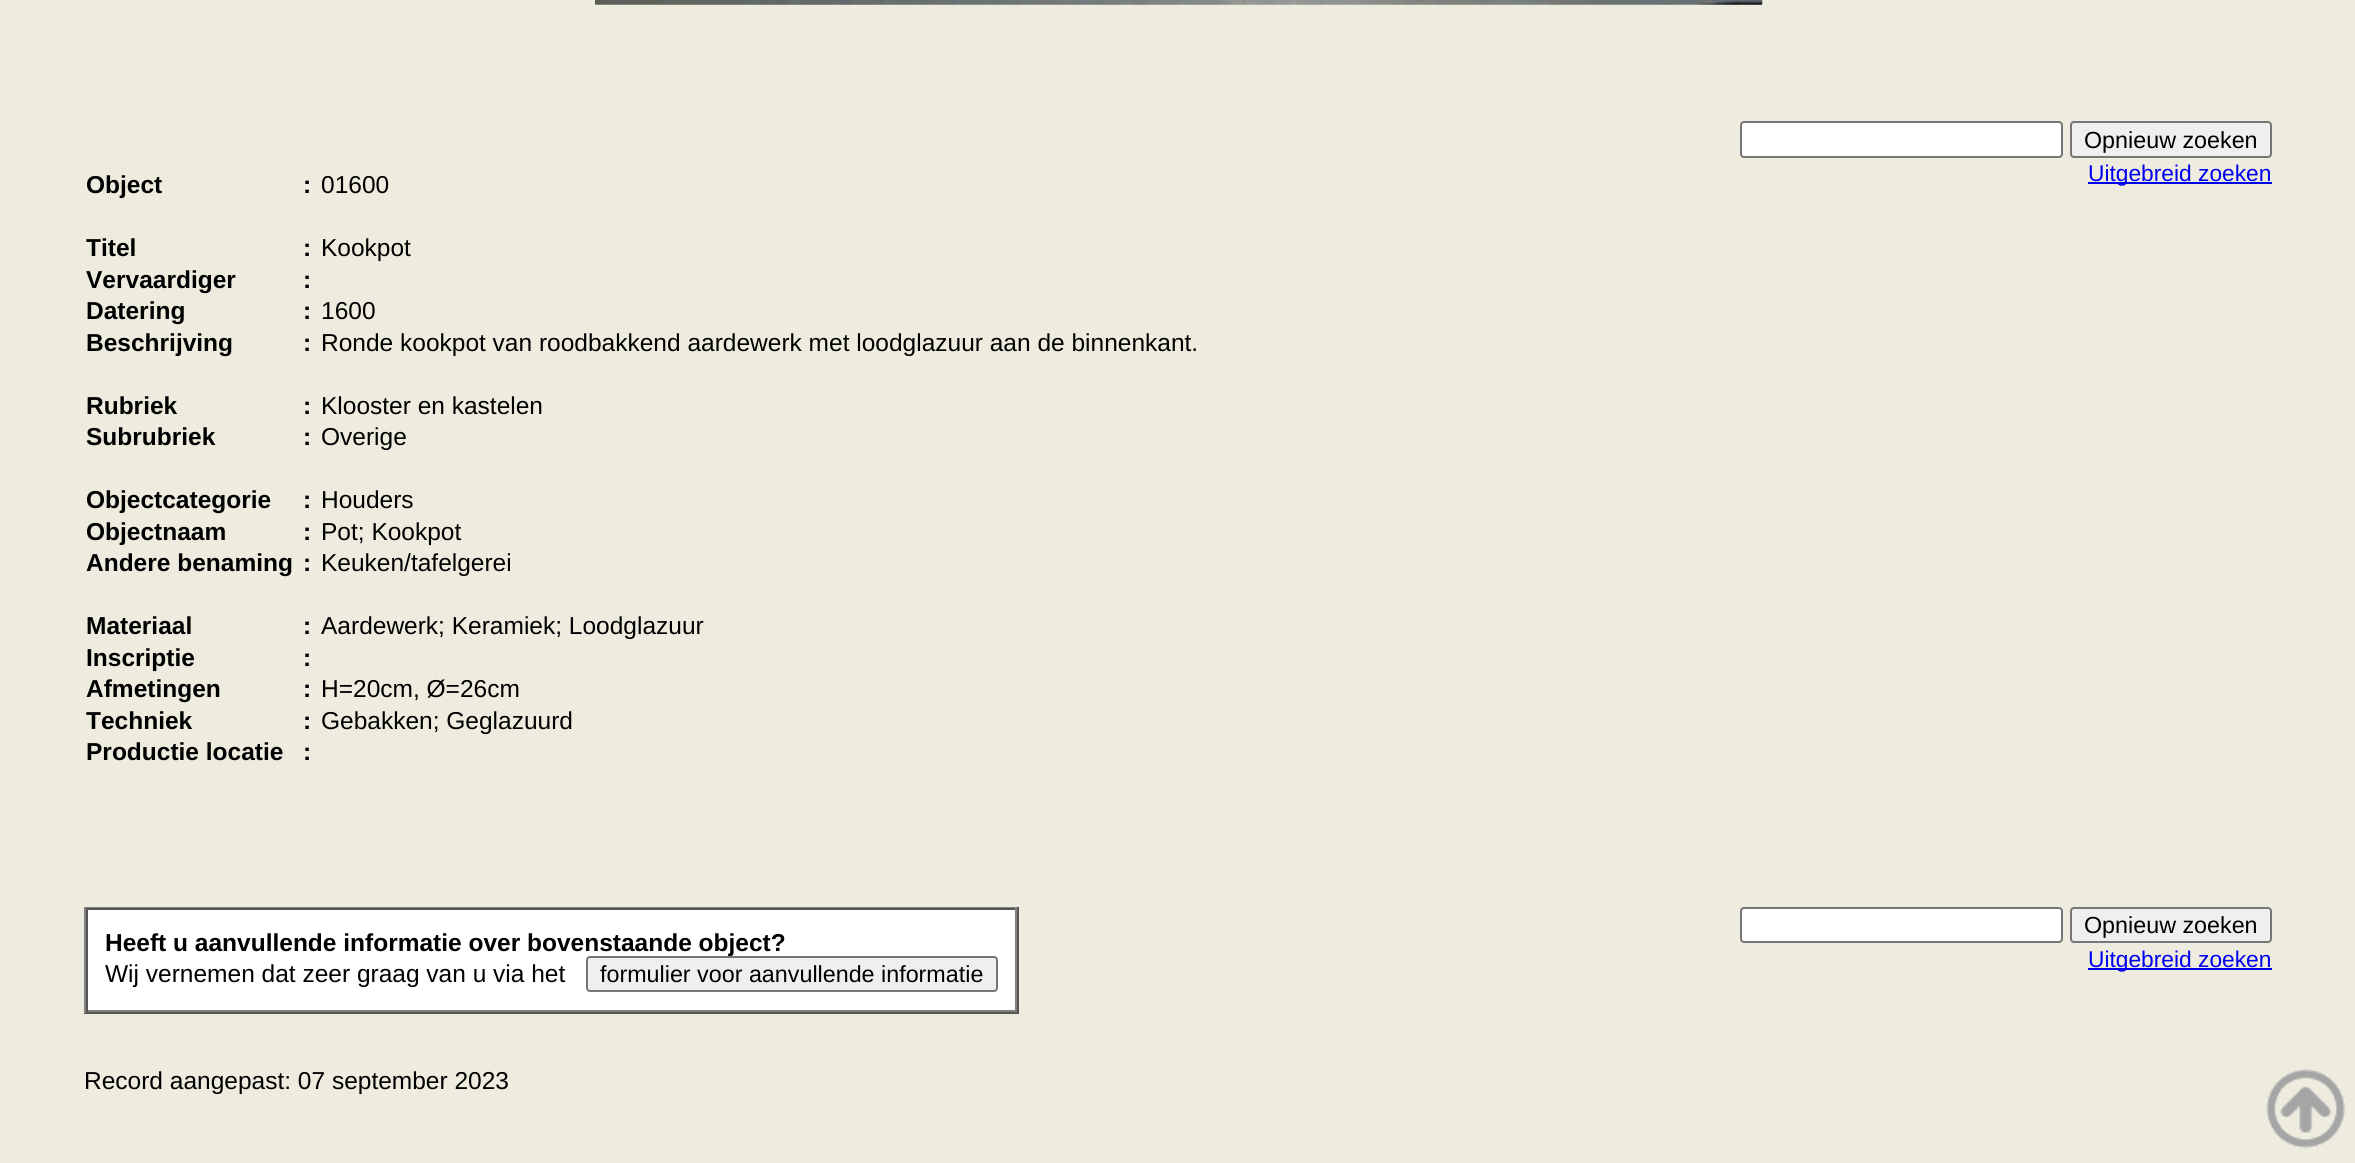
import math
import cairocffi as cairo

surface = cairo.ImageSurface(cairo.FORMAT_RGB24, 2355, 1163)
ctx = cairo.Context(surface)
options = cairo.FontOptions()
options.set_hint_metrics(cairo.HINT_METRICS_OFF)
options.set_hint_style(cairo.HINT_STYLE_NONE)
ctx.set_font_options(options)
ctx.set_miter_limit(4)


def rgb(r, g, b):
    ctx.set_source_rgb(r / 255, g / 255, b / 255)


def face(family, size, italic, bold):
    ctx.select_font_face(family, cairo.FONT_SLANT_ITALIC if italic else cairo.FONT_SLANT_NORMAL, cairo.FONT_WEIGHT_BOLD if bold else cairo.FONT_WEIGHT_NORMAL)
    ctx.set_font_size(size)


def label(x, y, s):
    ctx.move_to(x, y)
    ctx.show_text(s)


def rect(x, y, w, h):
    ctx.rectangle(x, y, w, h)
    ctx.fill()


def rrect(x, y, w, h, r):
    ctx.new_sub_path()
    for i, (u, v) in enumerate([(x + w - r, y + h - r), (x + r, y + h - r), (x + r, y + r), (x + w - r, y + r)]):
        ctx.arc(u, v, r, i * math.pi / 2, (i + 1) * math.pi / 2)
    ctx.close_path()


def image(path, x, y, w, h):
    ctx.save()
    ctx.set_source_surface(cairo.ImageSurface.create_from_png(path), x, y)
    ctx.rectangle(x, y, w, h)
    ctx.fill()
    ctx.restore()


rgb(238, 236, 223)
ctx.paint()
image('image0.png', 595, 0, 1168, 5)
rgb(255, 255, 255)
rrect(1741, 122, 321, 35, 3)
ctx.fill_preserve()
rgb(118, 118, 118)
ctx.stroke()
rgb(239, 239, 239)
rrect(2071, 122, 200, 35, 3)
ctx.fill_preserve()
rgb(118, 118, 118)
ctx.stroke()
face('Liberation Sans', 23.3, 0, 0)
rgb(0, 0, 0)
label(2084, 148, 'Opnieuw zoeken')
rgb(0, 0, 238)
rect(2088, 182, 184, 2)
face('Liberation Sans', 22.75, 0, 0)
label(2088, 181, 'Uitgebreid zoeken')
face('Liberation Sans', 24.5, 0, 1)
rgb(0, 0, 0)
label(86, 193, 'Object')
label(303, 193, ':')
face('Liberation Sans', 24.5, 0, 0)
label(321, 193, '01600')
face('Liberation Sans', 24.5, 0, 1)
label(86, 256, 'Titel')
label(303, 256, ':')
face('Liberation Sans', 24.5, 0, 0)
label(321, 256, 'Kookpot')
face('Liberation Sans', 24.5, 0, 1)
label(86, 288, 'Vervaardiger')
label(303, 288, ':')
label(86, 319, 'Datering')
label(303, 319, ':')
face('Liberation Sans', 24.5, 0, 0)
label(321, 319, '1600')
face('Liberation Sans', 24.5, 0, 1)
label(86, 351, 'Beschrijving')
label(303, 351, ':')
face('Liberation Sans', 24.5, 0, 0)
label(321, 351, 'Ronde kookpot van roodbakkend aardewerk met loodglazuur aan de binnenkant.')
face('Liberation Sans', 24.5, 0, 1)
label(86, 414, 'Rubriek')
label(303, 414, ':')
face('Liberation Sans', 24.5, 0, 0)
label(321, 414, 'Klooster en kastelen')
face('Liberation Sans', 24.5, 0, 1)
label(86, 445, 'Subrubriek')
label(303, 445, ':')
face('Liberation Sans', 24.5, 0, 0)
label(321, 445, 'Overige')
face('Liberation Sans', 24.5, 0, 1)
label(86, 508, 'Objectcategorie')
label(303, 508, ':')
face('Liberation Sans', 24.5, 0, 0)
label(321, 508, 'Houders')
face('Liberation Sans', 24.5, 0, 1)
label(86, 540, 'Objectnaam')
label(303, 540, ':')
face('Liberation Sans', 24.5, 0, 0)
label(321, 540, 'Pot; Kookpot')
face('Liberation Sans', 24.5, 0, 1)
label(86, 571, 'Andere benaming')
label(303, 571, ':')
face('Liberation Sans', 24.5, 0, 0)
label(321, 571, 'Keuken/tafelgerei')
face('Liberation Sans', 24.5, 0, 1)
label(86, 634, 'Materiaal')
label(303, 634, ':')
face('Liberation Sans', 24.5, 0, 0)
label(321, 634, 'Aardewerk; Keramiek; Loodglazuur')
face('Liberation Sans', 24.5, 0, 1)
label(86, 666, 'Inscriptie')
label(303, 666, ':')
label(86, 697, 'Afmetingen')
label(303, 697, ':')
face('Liberation Sans', 24.5, 0, 0)
label(321, 697, 'H=20cm, Ø=26cm')
face('Liberation Sans', 24.5, 0, 1)
label(86, 729, 'Techniek')
label(303, 729, ':')
face('Liberation Sans', 24.5, 0, 0)
label(321, 729, 'Gebakken; Geglazuurd')
face('Liberation Sans', 24.5, 0, 1)
label(86, 760, 'Productie locatie')
label(303, 760, ':')
rgb(128, 128, 128)
rect(84, 907, 935, 1)
rgb(85, 85, 85)
rect(1017, 907, 2, 106)
rect(84, 1012, 935, 2)
rgb(128, 128, 128)
rect(84, 907, 2, 106)
rgb(255, 255, 255)
rect(88, 910, 927, 100)
rgb(85, 85, 85)
rect(86, 908, 931, 2)
rgb(128, 128, 128)
rect(1015, 908, 2, 104)
rect(86, 1010, 931, 2)
rgb(85, 85, 85)
rect(86, 908, 2, 104)
rgb(0, 0, 0)
label(105, 951, 'Heeft u aanvullende informatie over bovenstaande object?')
face('Liberation Sans', 24.5, 0, 0)
label(105, 982, 'Wij vernemen dat zeer graag van u via het')
rgb(239, 239, 239)
rrect(587, 957, 410, 34, 3)
ctx.fill_preserve()
rgb(118, 118, 118)
ctx.stroke()
face('Liberation Sans', 23.3, 0, 0)
rgb(0, 0, 0)
label(600, 982, 'formulier voor aanvullende informatie')
rgb(255, 255, 255)
rrect(1741, 908, 321, 34, 3)
ctx.fill_preserve()
rgb(118, 118, 118)
ctx.stroke()
rgb(239, 239, 239)
rrect(2071, 908, 200, 34, 3)
ctx.fill_preserve()
rgb(118, 118, 118)
ctx.stroke()
rgb(0, 0, 0)
label(2084, 933, 'Opnieuw zoeken')
rgb(0, 0, 238)
rect(2088, 968, 184, 2)
face('Liberation Sans', 22.75, 0, 0)
label(2088, 967, 'Uitgebreid zoeken')
face('Liberation Sans', 24.5, 0, 0)
rgb(0, 0, 0)
label(84, 1089, 'Record aangepast: 07 september 2023')
image('image1.png', 2266, 1069, 80, 80)
surface.write_to_png('render.png')
